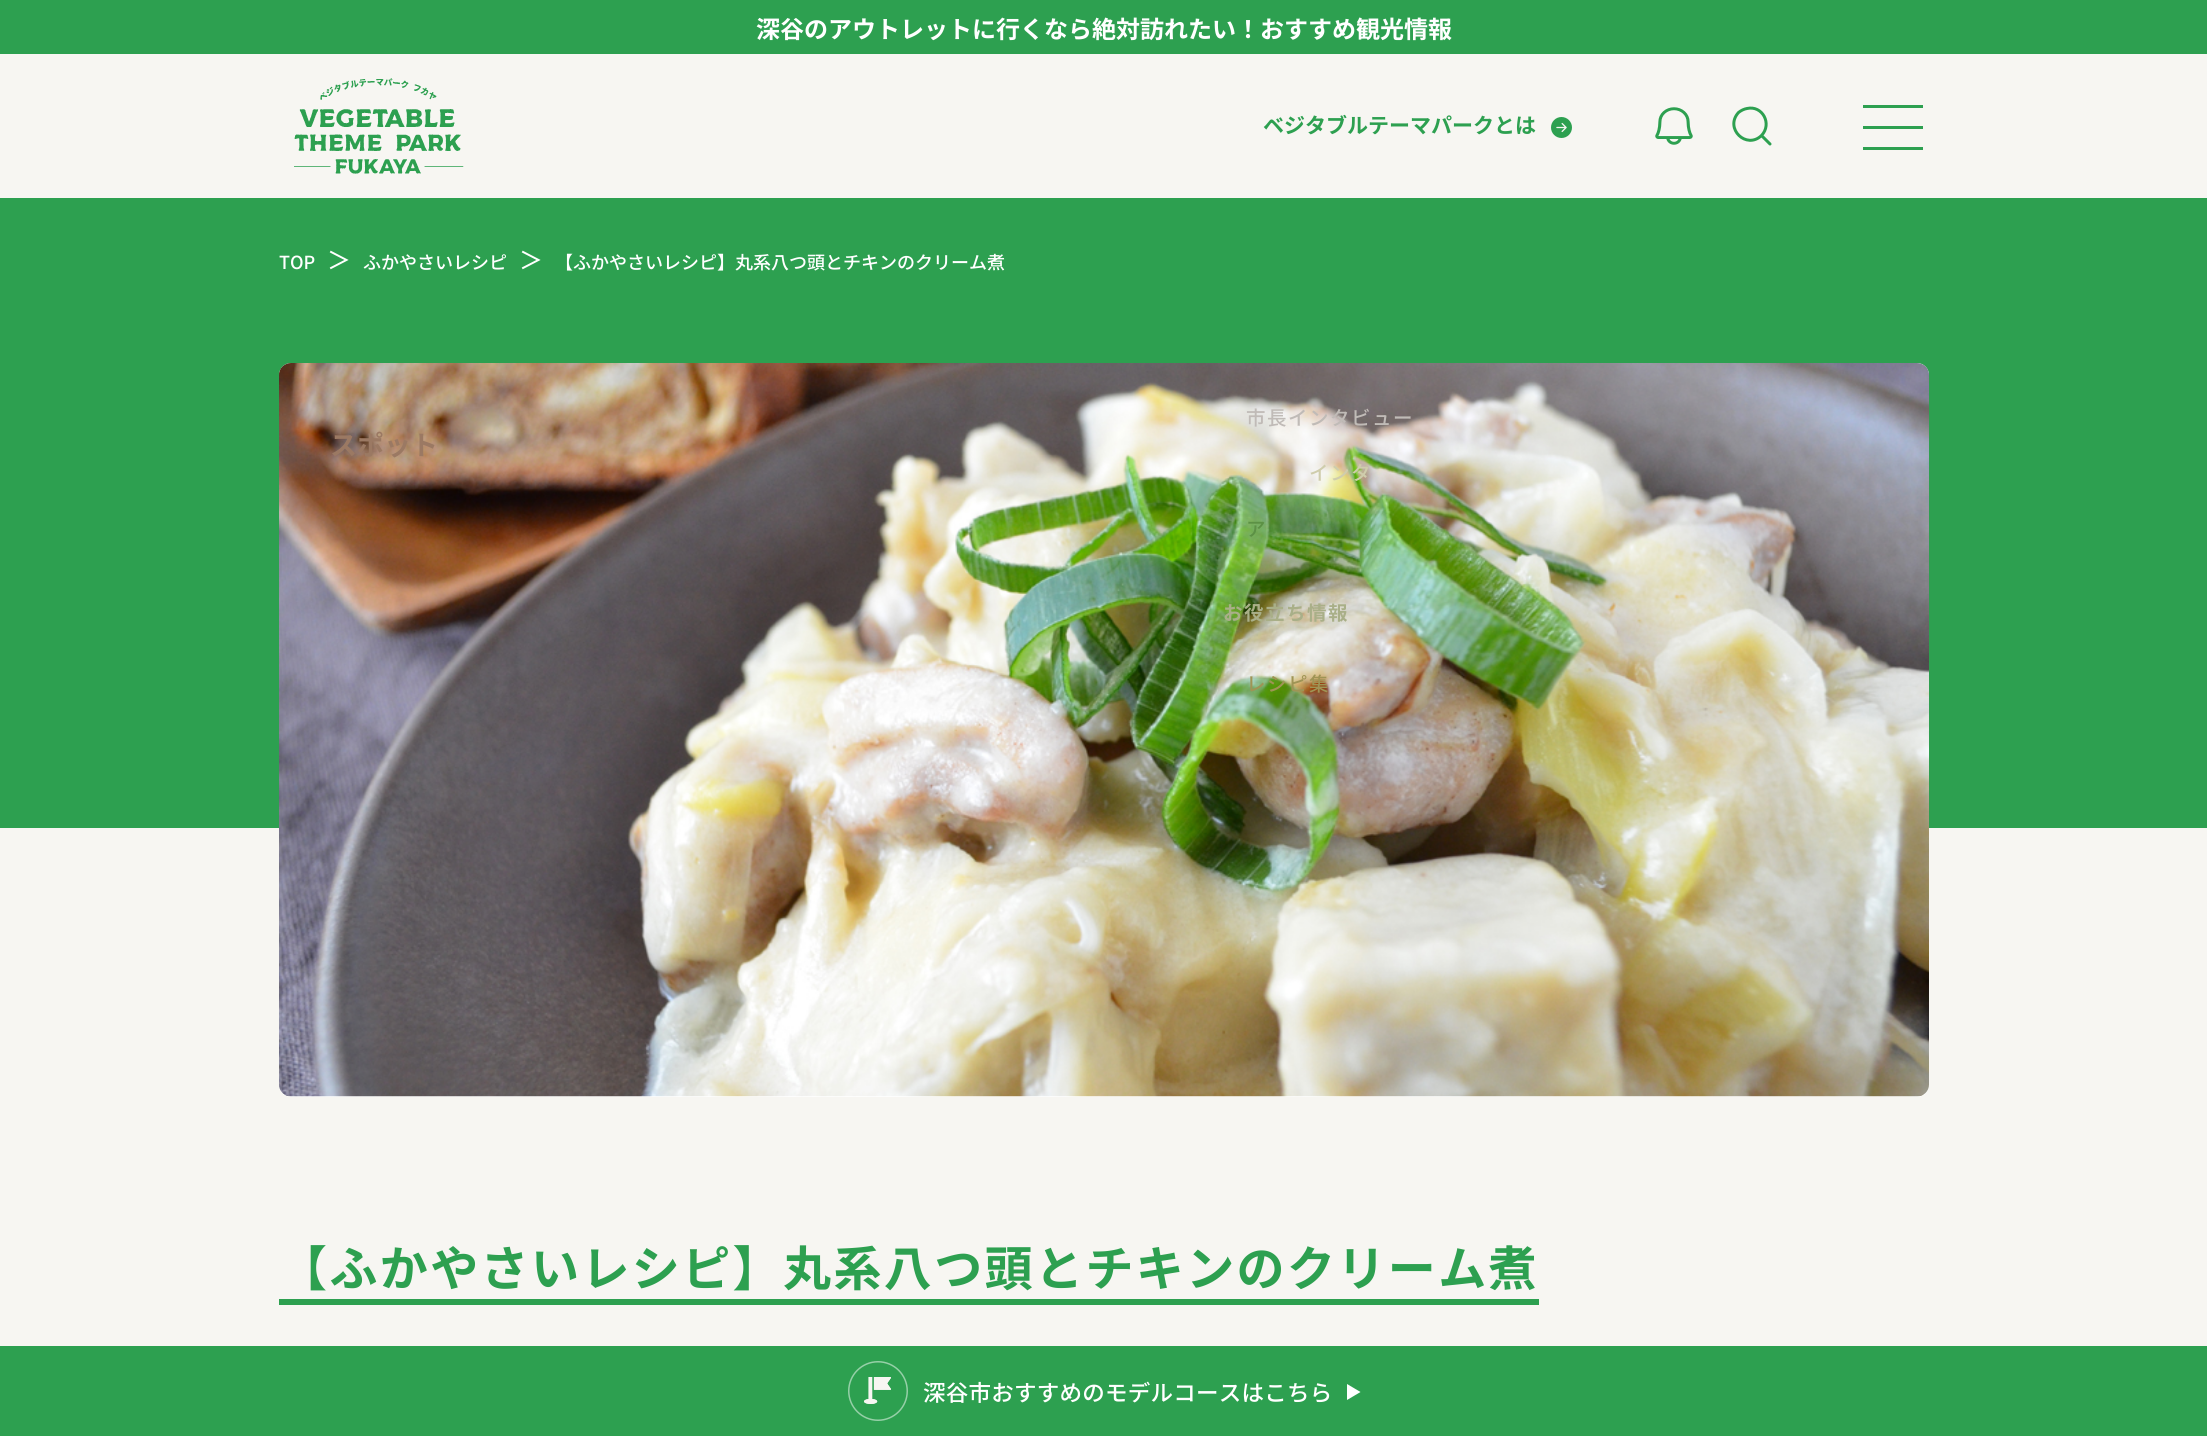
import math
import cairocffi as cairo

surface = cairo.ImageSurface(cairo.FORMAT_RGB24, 2207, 1436)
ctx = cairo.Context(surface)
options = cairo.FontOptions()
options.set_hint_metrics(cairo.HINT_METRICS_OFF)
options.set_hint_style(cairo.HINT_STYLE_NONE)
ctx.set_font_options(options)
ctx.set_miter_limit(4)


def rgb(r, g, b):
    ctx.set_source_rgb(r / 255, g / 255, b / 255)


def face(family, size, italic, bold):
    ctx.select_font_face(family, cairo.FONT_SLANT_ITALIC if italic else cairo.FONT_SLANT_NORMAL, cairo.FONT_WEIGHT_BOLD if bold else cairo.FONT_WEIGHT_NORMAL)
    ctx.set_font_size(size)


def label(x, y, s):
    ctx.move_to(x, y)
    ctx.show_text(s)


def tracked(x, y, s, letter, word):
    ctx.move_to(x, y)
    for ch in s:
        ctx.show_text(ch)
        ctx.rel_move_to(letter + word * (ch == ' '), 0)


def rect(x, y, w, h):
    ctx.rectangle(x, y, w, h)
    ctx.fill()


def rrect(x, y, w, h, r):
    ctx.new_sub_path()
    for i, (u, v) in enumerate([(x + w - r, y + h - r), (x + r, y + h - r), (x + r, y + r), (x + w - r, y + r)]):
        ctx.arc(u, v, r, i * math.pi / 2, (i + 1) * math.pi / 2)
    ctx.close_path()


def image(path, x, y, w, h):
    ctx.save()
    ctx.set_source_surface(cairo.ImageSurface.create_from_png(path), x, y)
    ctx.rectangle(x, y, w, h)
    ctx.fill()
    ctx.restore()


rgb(247, 246, 242)
ctx.paint()
rgb(45, 160, 80)
rect(0, 0, 2207, 54)
face('Noto Sans JP', 24, 0, 1)
rgb(255, 255, 255)
label(756, 38, '深谷のアウトレットに行くなら絶対訪れたい！おすすめ観光情報')
image('image0.png', 294, 78, 170, 96)
face('Noto Sans JP', 21, 0, 1)
rgb(45, 160, 80)
label(1263, 133, 'ベジタブルテーマパークとは')
image('image1.png', 1551, 117, 21, 21)
image('image2.png', 1655, 107, 38, 38)
ctx.new_path()
ctx.move_to(1770, 144)
ctx.line_to(1761.5, 135.5)
ctx.move_to(1761.5, 135.5)
ctx.curve_to(1772.5, 124, 1762.5, 105, 1747, 108.5)
ctx.curve_to(1744, 109, 1741, 110.5, 1738.5, 112.5)
ctx.curve_to(1724, 128.5, 1746.5, 150, 1761.5, 135.5)
ctx.close_path()
ctx.set_line_width(3)
ctx.set_line_cap(cairo.LINE_CAP_ROUND)
ctx.set_line_join(cairo.LINE_JOIN_ROUND)
ctx.stroke()
rect(1863, 105, 60, 3)
rect(1863, 126, 60, 3)
rect(1863, 147, 60, 3)
rect(0, 198, 2207, 630)
rgb(255, 255, 255)
rrect(279, 363, 1650, 734, 12)
ctx.fill()
image('image3.png', 279, 363, 1650, 734)
face('Noto Sans JP', 27, 0, 1)
rgb(155, 121, 99)
label(330, 455, 'スポット')
face('Noto Sans JP Medium', 19.5, 0, 0)
rgb(192, 187, 183)
tracked(1246, 425, '市長インタビュー', 1.5, 0)
rgb(207, 205, 172)
tracked(1309, 480, 'インタ', 1.5, 0)
rgb(92, 145, 69)
tracked(1246, 536, 'ア', 1.5, 0)
face('Noto Sans JP', 19.5, 0, 1)
rgb(169, 175, 136)
tracked(1223, 620, 'お役立ち情報', 1.5, 0)
face('Noto Sans JP Medium', 19.5, 0, 0)
rgb(159, 148, 85)
tracked(1246, 691, 'レシピ集', 1.5, 0)
face('Noto Sans JP Medium', 18, 0, 0)
rgb(255, 255, 255)
label(279, 269, 'TOP')
face('Noto Sans JP Medium', 24, 0, 0)
label(327, 269, '＞')
face('Noto Sans JP Medium', 18, 0, 0)
label(363, 269, 'ふかやさいレシピ')
face('Noto Sans JP Medium', 24, 0, 0)
label(519, 269, '＞')
face('Noto Sans JP Medium', 18, 0, 0)
label(555, 269, '【ふかやさいレシピ】丸系八つ頭とチキンのクリーム煮')
face('Noto Sans JP', 48, 0, 1)
rgb(45, 160, 80)
tracked(279, 1286, '【ふかやさいレシピ】丸系八つ頭とチキンのクリーム煮', 2.4, 0)
rect(279, 1299, 1260, 6)
rect(0, 1346, 2207, 90)
image('image4.png', 848, 1361, 60, 60)
face('Noto Sans JP Medium', 22.5, 0, 0)
rgb(255, 255, 255)
tracked(923, 1401, '深谷市おすすめのモデルコースはこちら', 0.25, 0)
ctx.new_path()
ctx.move_to(1360.5, 1392)
ctx.line_to(1347, 1400)
ctx.line_to(1347, 1384)
ctx.close_path()
ctx.fill()
surface.write_to_png('render.png')
